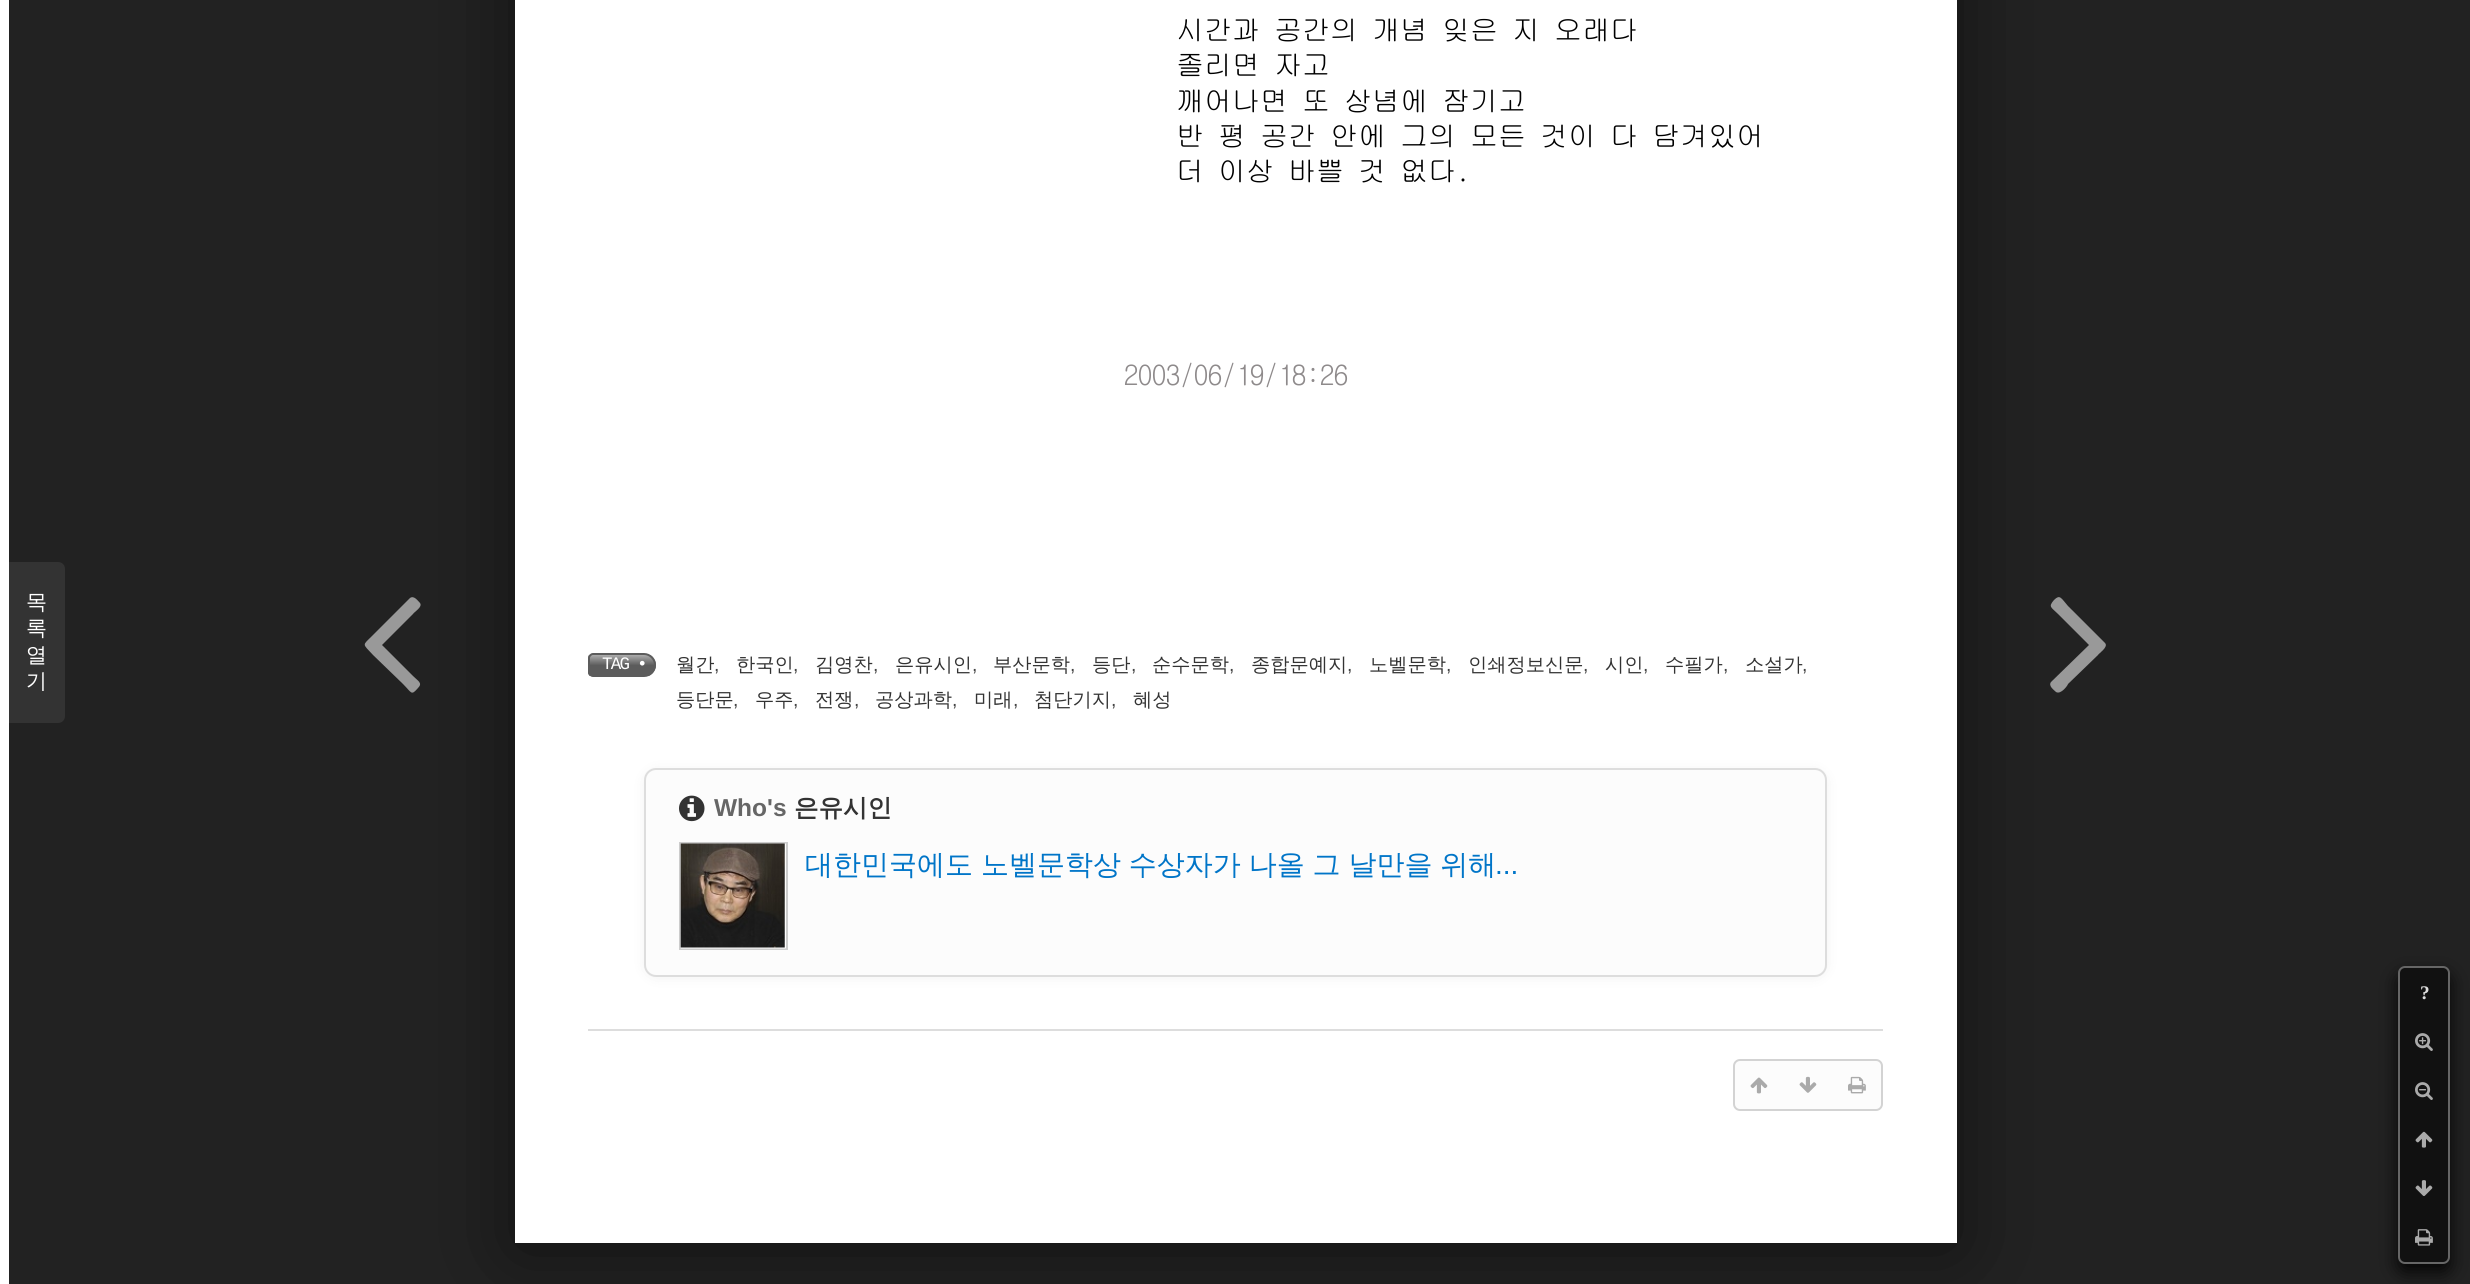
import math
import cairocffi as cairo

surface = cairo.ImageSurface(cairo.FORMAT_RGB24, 2470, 1284)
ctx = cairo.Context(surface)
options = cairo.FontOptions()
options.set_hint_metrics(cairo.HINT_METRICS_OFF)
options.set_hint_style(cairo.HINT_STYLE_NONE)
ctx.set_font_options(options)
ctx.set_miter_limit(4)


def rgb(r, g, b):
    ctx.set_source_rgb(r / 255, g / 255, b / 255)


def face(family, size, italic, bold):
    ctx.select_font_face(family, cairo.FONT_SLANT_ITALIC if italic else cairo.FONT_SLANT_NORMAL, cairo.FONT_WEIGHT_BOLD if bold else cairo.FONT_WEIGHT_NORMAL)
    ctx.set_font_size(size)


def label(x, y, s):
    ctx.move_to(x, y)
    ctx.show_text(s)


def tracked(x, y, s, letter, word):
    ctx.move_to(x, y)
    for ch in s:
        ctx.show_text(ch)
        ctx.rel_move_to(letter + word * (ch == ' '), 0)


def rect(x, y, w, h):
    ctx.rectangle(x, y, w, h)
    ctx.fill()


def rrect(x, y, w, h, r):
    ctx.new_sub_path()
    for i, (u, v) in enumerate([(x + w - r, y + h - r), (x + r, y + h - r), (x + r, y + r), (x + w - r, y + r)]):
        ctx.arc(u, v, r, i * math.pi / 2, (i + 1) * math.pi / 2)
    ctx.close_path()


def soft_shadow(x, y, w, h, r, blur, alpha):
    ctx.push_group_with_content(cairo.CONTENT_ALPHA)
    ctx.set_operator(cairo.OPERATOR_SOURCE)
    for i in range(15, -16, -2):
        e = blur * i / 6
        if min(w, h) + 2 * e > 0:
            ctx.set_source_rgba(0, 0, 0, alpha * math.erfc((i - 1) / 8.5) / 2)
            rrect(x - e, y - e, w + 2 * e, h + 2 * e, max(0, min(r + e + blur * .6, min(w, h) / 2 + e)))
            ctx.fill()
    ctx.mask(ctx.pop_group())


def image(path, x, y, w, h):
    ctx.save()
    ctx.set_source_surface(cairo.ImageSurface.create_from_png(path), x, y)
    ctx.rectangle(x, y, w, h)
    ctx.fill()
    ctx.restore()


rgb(34, 34, 34)
ctx.paint()
rgb(0, 0, 0)
soft_shadow(515, -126, 1442, 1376, 0, 42, 0.5)
rgb(255, 255, 255)
rect(515, 0, 1442, 1243)
rect(0, 0, 9, 1284)
rgb(51, 51, 51)
ctx.new_path()
ctx.move_to(9, 562)
ctx.line_to(58, 562)
ctx.curve_to(62, 562, 65, 565, 65, 569)
ctx.line_to(65, 716)
ctx.curve_to(65, 720, 62, 723, 58, 723)
ctx.line_to(9, 723)
ctx.close_path()
ctx.fill()
face('WenQuanYi Zen Hei Medium', 21, 0, 0)
rgb(255, 255, 255)
label(26, 609, '목')
label(26, 635, '록')
label(26, 662, '열')
label(26, 688, '기')
face('GulimChe', 28, 0, 0)
rgb(0, 0, 0)
label(1176, 40, '시간과 공간의 개념 잊은 지 오래다')
label(1176, 75, '졸리면 자고')
label(1176, 111, '깨어나면 또 상념에 잠기고')
label(1176, 146, '반 평 공간 안에 그의 모든 것이 다 담겨있어')
label(1176, 181, '더 이상 바쁠 것 없다.')
rgb(142, 138, 139)
label(1124, 385, '2003/06/19/18:26')
ctx.save()
ctx.new_path()
ctx.move_to(593, 653)
ctx.line_to(644, 653)
ctx.curve_to(650.5, 653, 656, 658.5, 656, 665)
ctx.curve_to(656, 671.5, 650.5, 677, 644, 677)
ctx.line_to(593, 677)
ctx.curve_to(590, 677, 588, 675, 588, 672)
ctx.line_to(588, 658)
ctx.curve_to(588, 655, 590, 653, 593, 653)
ctx.close_path()
ctx.clip()
gradient = cairo.LinearGradient(622, 644, 622, 676)
gradient.add_color_stop_rgba(0, 1, 1, 1, 1)
gradient.add_color_stop_rgba(0.67, 0.361, 0.361, 0.361, 1)
ctx.set_source(gradient)
rect(588, 655, 68, 21)
ctx.restore()
ctx.new_path()
ctx.move_to(593, 654)
ctx.line_to(644, 654)
ctx.curve_to(650, 654, 655, 659, 655, 665)
ctx.curve_to(655, 671, 650, 676, 644, 676)
ctx.line_to(593, 676)
ctx.curve_to(591, 676, 589, 674, 589, 672)
ctx.line_to(589, 658)
ctx.curve_to(589, 656, 591, 654, 593, 654)
ctx.close_path()
rgb(92, 92, 92)
ctx.stroke()
face('Liberation Mono', 17.5, 0, 0)
rgb(255, 255, 255)
tracked(602, 669, 'TAG •', -1.75, 0)
face('WenQuanYi Zen Hei Medium', 19.25, 0, 0)
rgb(51, 51, 51)
label(676, 671, '월간')
face('Liberation Sans', 19.25, 0, 0)
rgb(68, 68, 68)
label(714, 671, ',')
face('WenQuanYi Zen Hei Medium', 19.25, 0, 0)
rgb(51, 51, 51)
label(736, 671, '한국인')
face('Liberation Sans', 19.25, 0, 0)
rgb(68, 68, 68)
label(793, 671, ',')
face('WenQuanYi Zen Hei Medium', 19.25, 0, 0)
rgb(51, 51, 51)
label(815, 671, '김영찬')
face('Liberation Sans', 19.25, 0, 0)
rgb(68, 68, 68)
label(873, 671, ',')
face('WenQuanYi Zen Hei Medium', 19.25, 0, 0)
rgb(51, 51, 51)
label(895, 671, '은유시인')
face('Liberation Sans', 19.25, 0, 0)
rgb(68, 68, 68)
label(972, 671, ',')
face('WenQuanYi Zen Hei Medium', 19.25, 0, 0)
rgb(51, 51, 51)
label(993, 671, '부산문학')
face('Liberation Sans', 19.25, 0, 0)
rgb(68, 68, 68)
label(1070, 671, ',')
face('WenQuanYi Zen Hei Medium', 19.25, 0, 0)
rgb(51, 51, 51)
label(1092, 671, '등단')
face('Liberation Sans', 19.25, 0, 0)
rgb(68, 68, 68)
label(1131, 671, ',')
face('WenQuanYi Zen Hei Medium', 19.25, 0, 0)
rgb(51, 51, 51)
label(1152, 671, '순수문학')
face('Liberation Sans', 19.25, 0, 0)
rgb(68, 68, 68)
label(1229, 671, ',')
face('WenQuanYi Zen Hei Medium', 19.25, 0, 0)
rgb(51, 51, 51)
label(1251, 671, '종합문예지')
face('Liberation Sans', 19.25, 0, 0)
rgb(68, 68, 68)
label(1347, 671, ',')
face('WenQuanYi Zen Hei Medium', 19.25, 0, 0)
rgb(51, 51, 51)
label(1369, 671, '노벨문학')
face('Liberation Sans', 19.25, 0, 0)
rgb(68, 68, 68)
label(1446, 671, ',')
face('WenQuanYi Zen Hei Medium', 19.25, 0, 0)
rgb(51, 51, 51)
label(1468, 671, '인쇄정보신문')
face('Liberation Sans', 19.25, 0, 0)
rgb(68, 68, 68)
label(1583, 671, ',')
face('WenQuanYi Zen Hei Medium', 19.25, 0, 0)
rgb(51, 51, 51)
label(1605, 671, '시인')
face('Liberation Sans', 19.25, 0, 0)
rgb(68, 68, 68)
label(1643, 671, ',')
face('WenQuanYi Zen Hei Medium', 19.25, 0, 0)
rgb(51, 51, 51)
label(1665, 671, '수필가')
face('Liberation Sans', 19.25, 0, 0)
rgb(68, 68, 68)
label(1723, 671, ',')
face('WenQuanYi Zen Hei Medium', 19.25, 0, 0)
rgb(51, 51, 51)
label(1745, 671, '소설가')
face('Liberation Sans', 19.25, 0, 0)
rgb(68, 68, 68)
label(1802, 671, ',')
face('WenQuanYi Zen Hei Medium', 19.25, 0, 0)
rgb(51, 51, 51)
label(676, 706, '등단문')
face('Liberation Sans', 19.25, 0, 0)
rgb(68, 68, 68)
label(733, 706, ',')
face('WenQuanYi Zen Hei Medium', 19.25, 0, 0)
rgb(51, 51, 51)
label(755, 706, '우주')
face('Liberation Sans', 19.25, 0, 0)
rgb(68, 68, 68)
label(793, 706, ',')
face('WenQuanYi Zen Hei Medium', 19.25, 0, 0)
rgb(51, 51, 51)
label(815, 706, '전쟁')
face('Liberation Sans', 19.25, 0, 0)
rgb(68, 68, 68)
label(854, 706, ',')
face('WenQuanYi Zen Hei Medium', 19.25, 0, 0)
rgb(51, 51, 51)
label(875, 706, '공상과학')
face('Liberation Sans', 19.25, 0, 0)
rgb(68, 68, 68)
label(952, 706, ',')
face('WenQuanYi Zen Hei Medium', 19.25, 0, 0)
rgb(51, 51, 51)
label(974, 706, '미래')
face('Liberation Sans', 19.25, 0, 0)
rgb(68, 68, 68)
label(1013, 706, ',')
face('WenQuanYi Zen Hei Medium', 19.25, 0, 0)
rgb(51, 51, 51)
label(1034, 706, '첨단기지')
face('Liberation Sans', 19.25, 0, 0)
rgb(68, 68, 68)
label(1111, 706, ',')
face('WenQuanYi Zen Hei Medium', 19.25, 0, 0)
rgb(51, 51, 51)
label(1133, 706, '혜성')
rgb(153, 153, 153)
ctx.new_path()
ctx.move_to(420, 603)
ctx.curve_to(423, 607, 414, 612, 413, 614)
ctx.line_to(382, 645)
ctx.line_to(413, 676)
ctx.curve_to(418, 681, 423, 683, 418, 688)
ctx.curve_to(411, 696, 412, 693, 403, 684)
ctx.line_to(373, 655)
ctx.curve_to(362, 643, 362, 646, 373, 635)
ctx.line_to(410, 598)
ctx.curve_to(414, 595, 418, 601, 420, 603)
ctx.close_path()
ctx.fill()
ctx.new_path()
ctx.move_to(2105, 643)
ctx.curve_to(2109, 647, 2098, 654, 2098, 655)
ctx.line_to(2068, 684)
ctx.curve_to(2068, 685, 2061, 695, 2056, 692)
ctx.curve_to(2054, 690, 2048, 686, 2051, 682)
ctx.line_to(2089, 645)
ctx.line_to(2058, 614)
ctx.curve_to(2051, 607, 2048, 607, 2054, 600)
ctx.curve_to(2060, 594, 2061, 598, 2068, 606)
ctx.close_path()
ctx.fill()
rgb(0, 0, 0)
soft_shadow(649, 775, 1173, 198, 7, 8, 0.1)
rgb(252, 252, 252)
rrect(645, 769, 1181, 207, 11)
ctx.fill_preserve()
rgb(221, 221, 221)
ctx.stroke()
image('image0.png', 679, 795, 26, 27)
face('Liberation Sans', 24.5, 0, 1)
rgb(102, 102, 102)
label(714, 816, 'Who\'s')
face('WenQuanYi Zen Hei', 24.5, 0, 1)
rgb(51, 51, 51)
label(794, 816, '은유시인')
ctx.rectangle(680, 843, 107, 106)
rgb(204, 204, 204)
ctx.stroke()
image('image1.png', 680, 843, 106, 106)
face('WenQuanYi Zen Hei Medium', 28, 0, 0)
rgb(0, 117, 200)
tracked(805, 874, '대한민국에도 노벨문학상 수상자가 나올 그 날만을 위해', 0, -0.5)
face('Liberation Sans', 28, 0, 0)
label(1495, 874, '...')
rgb(221, 221, 221)
rect(588, 1029, 1295, 2)
rgb(252, 252, 252)
rrect(1734, 1060, 148, 50, 6)
ctx.fill_preserve()
rgb(211, 211, 211)
ctx.stroke()
image('image2.png', 1750, 1077, 18, 17)
image('image3.png', 1799, 1076, 18, 17)
image('image4.png', 1848, 1076, 18, 18)
rgb(0, 0, 0)
soft_shadow(2398, 975, 52, 297, 7, 9, 0.9)
rgb(17, 17, 17)
rrect(2399, 967, 50, 296, 6)
ctx.fill_preserve()
rgb(102, 102, 102)
ctx.stroke()
face('Liberation Serif', 19.25, 0, 1)
rgb(221, 221, 221)
tracked(2420, 999, '?', -1.75, 0)
image('image5.png', 2415, 1033, 18, 18)
image('image6.png', 2415, 1082, 18, 18)
image('image7.png', 2415, 1131, 18, 17)
image('image8.png', 2415, 1180, 18, 16)
image('image9.png', 2415, 1229, 18, 17)
surface.write_to_png('render.png')
